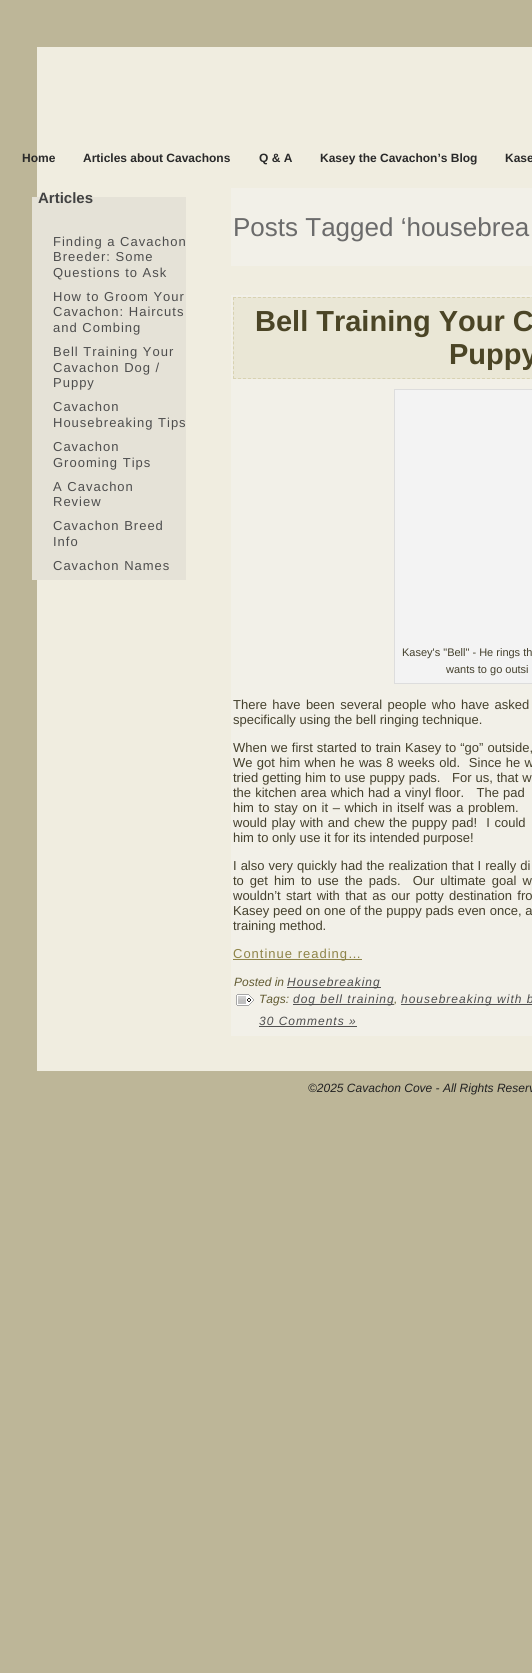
import math
import cairocffi as cairo

surface = cairo.ImageSurface(cairo.FORMAT_RGB24, 532, 1673)
ctx = cairo.Context(surface)
options = cairo.FontOptions()
options.set_hint_metrics(cairo.HINT_METRICS_OFF)
options.set_hint_style(cairo.HINT_STYLE_NONE)
ctx.set_font_options(options)
ctx.set_miter_limit(4)


def rgb(r, g, b):
    ctx.set_source_rgb(r / 255, g / 255, b / 255)


def face(family, size, italic, bold):
    ctx.select_font_face(family, cairo.FONT_SLANT_ITALIC if italic else cairo.FONT_SLANT_NORMAL, cairo.FONT_WEIGHT_BOLD if bold else cairo.FONT_WEIGHT_NORMAL)
    ctx.set_font_size(size)


def label(x, y, s):
    ctx.move_to(x, y)
    ctx.show_text(s)


def tracked(x, y, s, letter, word):
    ctx.move_to(x, y)
    for ch in s:
        ctx.show_text(ch)
        ctx.rel_move_to(letter + word * (ch == ' '), 0)


def rect(x, y, w, h):
    ctx.rectangle(x, y, w, h)
    ctx.fill()


def image(path, x, y, w, h):
    ctx.save()
    ctx.set_source_surface(cairo.ImageSurface.create_from_png(path), x, y)
    ctx.rectangle(x, y, w, h)
    ctx.fill()
    ctx.restore()


rgb(189, 182, 152)
ctx.paint()
rgb(240, 237, 224)
rect(37, 47, 495, 1024)
face('Liberation Sans', 12, 0, 1)
rgb(41, 41, 41)
label(22, 162, 'Home')
label(83, 162, 'Articles about Cavachons')
label(259, 162, 'Q & A')
label(320, 162, 'Kasey the Cavachon’s Blog')
label(505, 162, 'Kase')
rgb(229, 226, 215)
rect(32, 197, 154, 383)
face('Liberation Sans', 15, 0, 1)
rgb(66, 66, 66)
label(38, 203, 'Articles')
face('Liberation Sans', 13, 0, 0)
rgb(77, 77, 77)
tracked(53, 246, 'Finding a Cavachon', 1, 0)
tracked(53, 261, 'Breeder: Some', 1, 0)
tracked(53, 277, 'Questions to Ask', 1, 0)
tracked(53, 301, 'How to Groom Your', 1, 0)
tracked(53, 316, 'Cavachon: Haircuts', 1, 0)
tracked(53, 332, 'and Combing', 1, 0)
tracked(53, 356, 'Bell Training Your', 1, 0)
tracked(53, 372, 'Cavachon Dog /', 1, 0)
tracked(53, 387, 'Puppy', 1, 0)
tracked(53, 411, 'Cavachon', 1, 0)
tracked(53, 427, 'Housebreaking Tips', 1, 0)
tracked(53, 451, 'Cavachon', 1, 0)
tracked(53, 467, 'Grooming Tips', 1, 0)
tracked(53, 491, 'A Cavachon', 1, 0)
tracked(53, 506, 'Review', 1, 0)
tracked(53, 530, 'Cavachon Breed', 1, 0)
tracked(53, 546, 'Info', 1, 0)
tracked(53, 570, 'Cavachon Names', 1, 0)
rgb(242, 240, 232)
rect(231, 188, 301, 78)
face('Liberation Sans', 26, 0, 0)
rgb(107, 107, 107)
label(233, 236, 'Posts Tagged ‘housebrea')
rgb(242, 240, 232)
rect(231, 295, 301, 741)
rgb(234, 231, 214)
rect(233, 297, 299, 82)
ctx.new_path()
ctx.move_to(233, 297.5)
ctx.line_to(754, 297.5)
rgb(216, 210, 177)
ctx.set_line_width(1)
ctx.set_dash([3, 1.98])
ctx.stroke()
ctx.new_path()
ctx.move_to(233, 378.5)
ctx.line_to(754, 378.5)
ctx.stroke()
ctx.new_path()
ctx.move_to(233.5, 297)
ctx.line_to(233.5, 379)
ctx.set_dash([3, 1.94])
ctx.stroke()
face('Liberation Sans', 29, 0, 1)
rgb(75, 69, 38)
label(255, 331, 'Bell Training Your C')
label(449, 364, 'Puppy')
rgb(243, 243, 243)
ctx.rectangle(394.5, 389.5, 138, 294)
ctx.fill_preserve()
rgb(221, 221, 221)
ctx.set_dash([])
ctx.stroke()
face('Liberation Sans', 11, 0, 0)
rgb(68, 64, 44)
label(402, 656, 'Kasey\'s "Bell" - He rings th')
label(446, 673, 'wants to go outsi')
face('Liberation Sans', 13, 0, 0)
tracked(233, 709, 'There have been several people who have asked', 0, 1.75)
label(233, 724, 'specifically using the bell ringing technique.')
tracked(233, 752, 'When we first started to train Kasey to “go” outside,', 0, 0.5)
tracked(233, 767, 'We got him when he was 8 weeks old.  Since he w', 0, 0.75)
tracked(233, 782, 'tried getting him to use puppy pads.   For us, that w', 0, 0.25)
tracked(233, 797, 'the kitchen area which had a vinyl floor.   The pad', 0, 0.5)
tracked(233, 812, 'him to stay on it – which in itself was a problem.', 0, 1)
tracked(233, 827, 'would play with and chew the puppy pad!  I could', 0, 1)
label(233, 842, 'him to only use it for its intended purpose!')
tracked(233, 870, 'I also very quickly had the realization that I really di', 0, 0.4)
tracked(233, 885, 'to get him to use the pads.  Our ultimate goal w', 0, 2.4)
tracked(233, 900, 'wouldn’t start with that as our potty destination fro', 0, 1.75)
tracked(233, 915, 'Kasey peed on one of the puppy pads even once, a', 0, 0.25)
label(233, 930, 'training method.')
rgb(142, 132, 72)
rect(233, 959, 129, 1)
tracked(233, 958, 'Continue reading…', 1, 0)
face('Liberation Sans', 12, 1, 0)
rgb(98, 91, 50)
label(234, 986, 'Posted in')
rgb(82, 82, 82)
rect(287, 987, 94, 1)
rgb(77, 77, 77)
tracked(287, 986, 'Housebreaking', 1, 0)
image('image0.png', 236, 994, 18, 12)
rgb(98, 91, 50)
label(259, 1003, 'Tags:')
rgb(82, 82, 82)
rect(293, 1004, 101, 1)
rgb(77, 77, 77)
tracked(293, 1003, 'dog bell training', 1, 0)
rgb(98, 91, 50)
label(394, 1003, ',')
rgb(82, 82, 82)
rect(401, 1004, 131, 1)
rgb(77, 77, 77)
tracked(401, 1003, 'housebreaking with b', 1, 0)
tracked(259, 1025, '30 Comments »', 1, 0)
rgb(82, 82, 82)
rect(259, 1026, 98, 1)
rgb(33, 33, 33)
label(308, 1092, '©2025 Cavachon Cove - All Rights Reserv')
surface.write_to_png('render.png')
